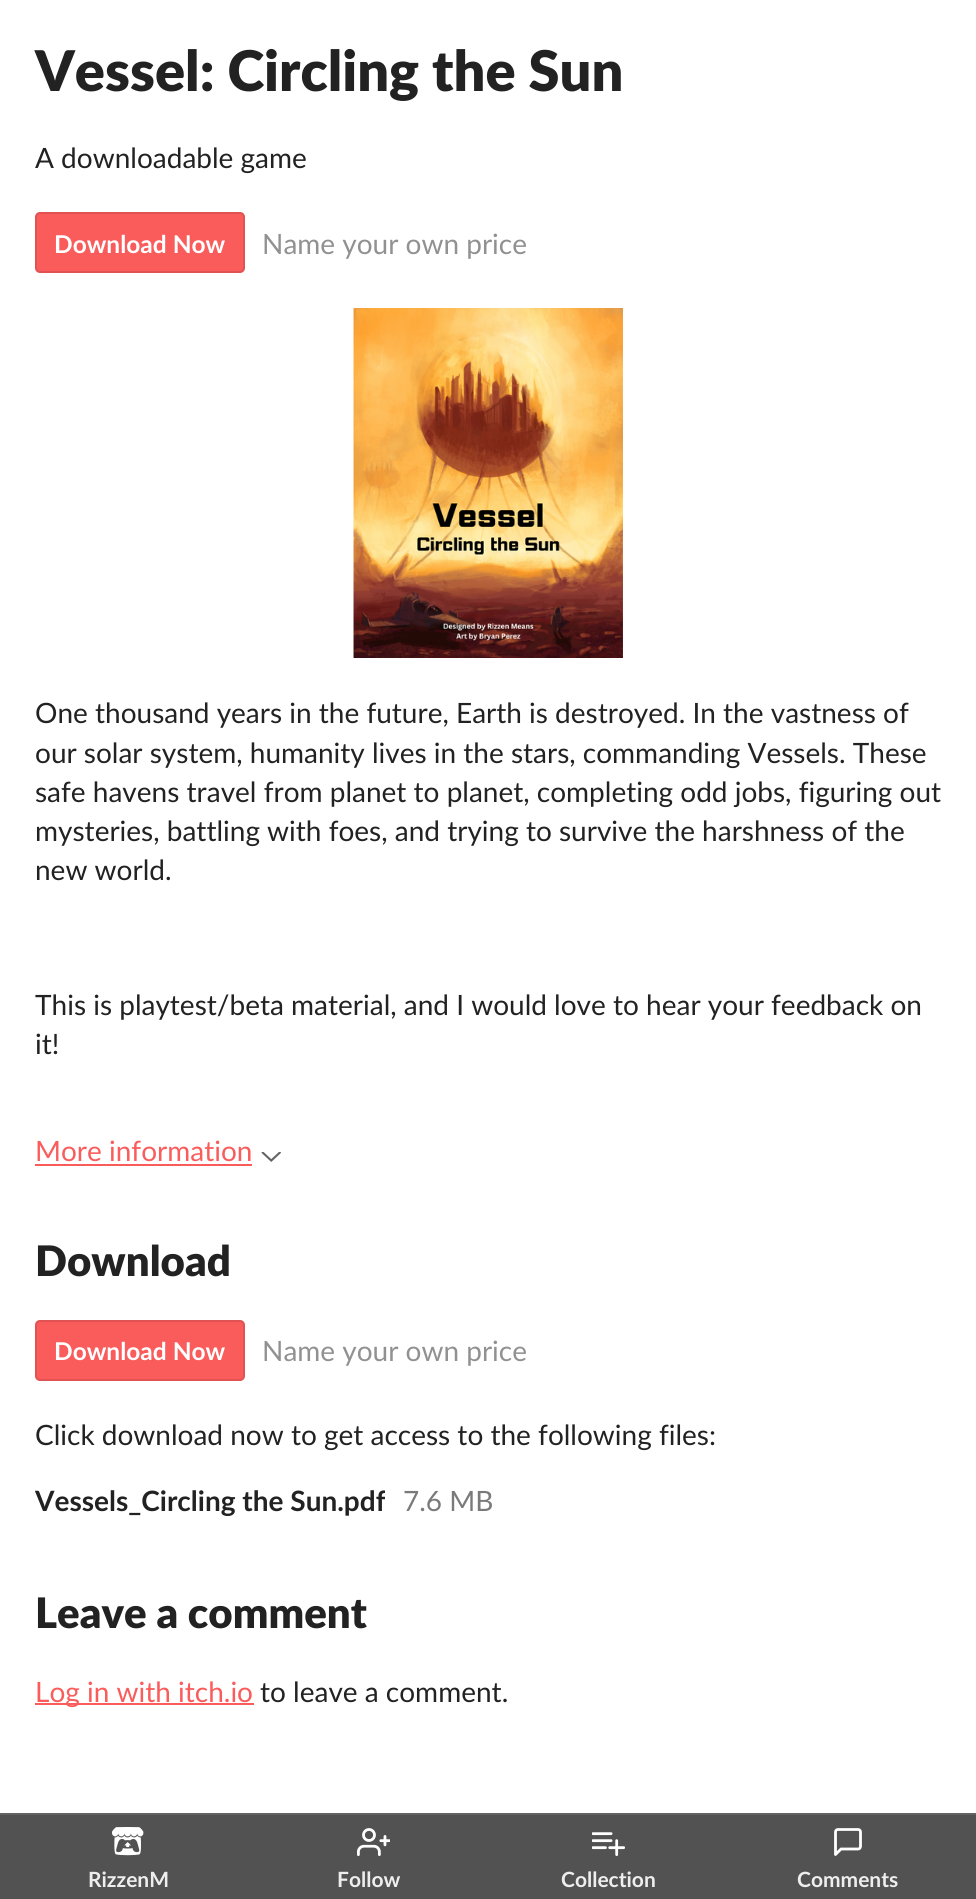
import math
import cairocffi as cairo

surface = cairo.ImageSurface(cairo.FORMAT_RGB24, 976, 1899)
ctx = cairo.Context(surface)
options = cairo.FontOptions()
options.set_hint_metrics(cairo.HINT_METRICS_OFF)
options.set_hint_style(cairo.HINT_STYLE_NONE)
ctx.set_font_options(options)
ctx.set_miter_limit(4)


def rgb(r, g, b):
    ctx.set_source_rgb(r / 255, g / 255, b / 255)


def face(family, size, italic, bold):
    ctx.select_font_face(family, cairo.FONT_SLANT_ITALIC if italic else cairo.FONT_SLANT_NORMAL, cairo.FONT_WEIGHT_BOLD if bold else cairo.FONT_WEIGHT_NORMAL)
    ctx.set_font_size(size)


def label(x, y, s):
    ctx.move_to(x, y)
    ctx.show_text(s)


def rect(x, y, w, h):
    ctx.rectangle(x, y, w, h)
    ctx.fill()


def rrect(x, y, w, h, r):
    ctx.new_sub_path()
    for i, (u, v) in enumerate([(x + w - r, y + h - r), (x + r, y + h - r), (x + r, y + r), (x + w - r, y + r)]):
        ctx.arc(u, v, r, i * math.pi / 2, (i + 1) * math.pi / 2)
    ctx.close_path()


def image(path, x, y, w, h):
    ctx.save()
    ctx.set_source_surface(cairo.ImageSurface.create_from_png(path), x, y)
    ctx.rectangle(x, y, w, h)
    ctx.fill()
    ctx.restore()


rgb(255, 255, 255)
ctx.paint()
face('Lato Black', 56, 0, 0)
rgb(34, 34, 34)
label(35, 91, 'Vessel: Circling the Sun')
face('Lato', 28, 0, 0)
label(35, 168, 'A downloadable game')
rgb(250, 92, 92)
rrect(35, 212, 210, 61, 5)
ctx.fill()
rrect(36, 213, 208, 59, 4)
ctx.set_source_rgba(0, 0, 0, 0.1)
ctx.stroke()
face('Lato', 24.5, 0, 1)
rgb(255, 255, 255)
label(54, 253, 'Download Now')
face('Lato', 28, 0, 0)
rgb(145, 145, 145)
label(262, 254, 'Name your own price')
image('image0.png', 353, 308, 270, 350)
rgb(34, 34, 34)
label(35, 723, 'One thousand years in the future, Earth is destroyed. In the vastness of')
label(35, 763, 'our solar system, humanity lives in the stars, commanding Vessels. These')
label(35, 802, 'safe havens travel from planet to planet, completing odd jobs, figuring out')
label(35, 841, 'mysteries, battling with foes, and trying to survive the harshness of the')
label(35, 880, 'new world.')
label(35, 1015, 'This is playtest/beta material, and I would love to hear your feedback on')
label(35, 1054, 'it!')
rgb(250, 92, 92)
label(35, 1161, 'More information')
rect(35, 1164, 217, 2)
image('image1.png', 261, 1152, 20, 10)
face('Lato Black', 42, 0, 0)
rgb(34, 34, 34)
label(35, 1276, 'Download')
rgb(250, 92, 92)
rrect(35, 1320, 210, 61, 5)
ctx.fill()
rrect(36, 1321, 208, 59, 4)
ctx.set_source_rgba(0, 0, 0, 0.1)
ctx.stroke()
face('Lato', 24.5, 0, 1)
rgb(255, 255, 255)
label(54, 1360, 'Download Now')
face('Lato', 28, 0, 0)
rgb(145, 145, 145)
label(262, 1361, 'Name your own price')
rgb(34, 34, 34)
label(35, 1445, 'Click download now to get access to the following files:')
ctx.save()
ctx.rectangle(35, 1482, 350, 34)
ctx.clip()
face('Lato', 28, 0, 1)
label(35, 1511, 'Vessels_Circling the Sun.pdf')
ctx.restore()
rgb(122, 122, 122)
label(403, 1511, '7.6 MB')
face('Lato Black', 42, 0, 0)
rgb(34, 34, 34)
label(35, 1628, 'Leave a comment')
rgb(250, 92, 92)
rect(35, 1703, 219, 2)
face('Lato', 28, 0, 0)
label(35, 1702, 'Log in with itch.io')
rgb(34, 34, 34)
label(260, 1702, 'to leave a comment.')
rgb(82, 82, 82)
rect(0, 1815, 976, 84)
rgb(99, 99, 99)
rect(0, 1813, 976, 2)
image('image2.png', 112, 1827, 32, 29)
face('Lato', 21, 0, 1)
rgb(238, 238, 238)
label(88, 1887, 'RizzenM')
image('image3.png', 357, 1828, 33, 28)
label(337, 1887, 'Follow')
image('image4.png', 592, 1832, 33, 24)
label(561, 1887, 'Collection')
ctx.new_path()
ctx.move_to(860.5, 1846)
ctx.curve_to(860.5, 1848, 859.5, 1849, 858, 1849)
ctx.line_to(841, 1849)
ctx.line_to(835.5, 1854.5)
ctx.line_to(835.5, 1832)
ctx.curve_to(835.5, 1830.5, 836.5, 1829.5, 838, 1829.5)
ctx.line_to(858, 1829.5)
ctx.curve_to(859.5, 1829.5, 860.5, 1830.5, 860.5, 1832)
ctx.close_path()
rgb(255, 255, 255)
ctx.set_line_width(2.8)
ctx.set_line_cap(cairo.LINE_CAP_ROUND)
ctx.set_line_join(cairo.LINE_JOIN_ROUND)
ctx.stroke()
rgb(238, 238, 238)
label(797, 1887, 'Comments')
surface.write_to_png('render.png')
